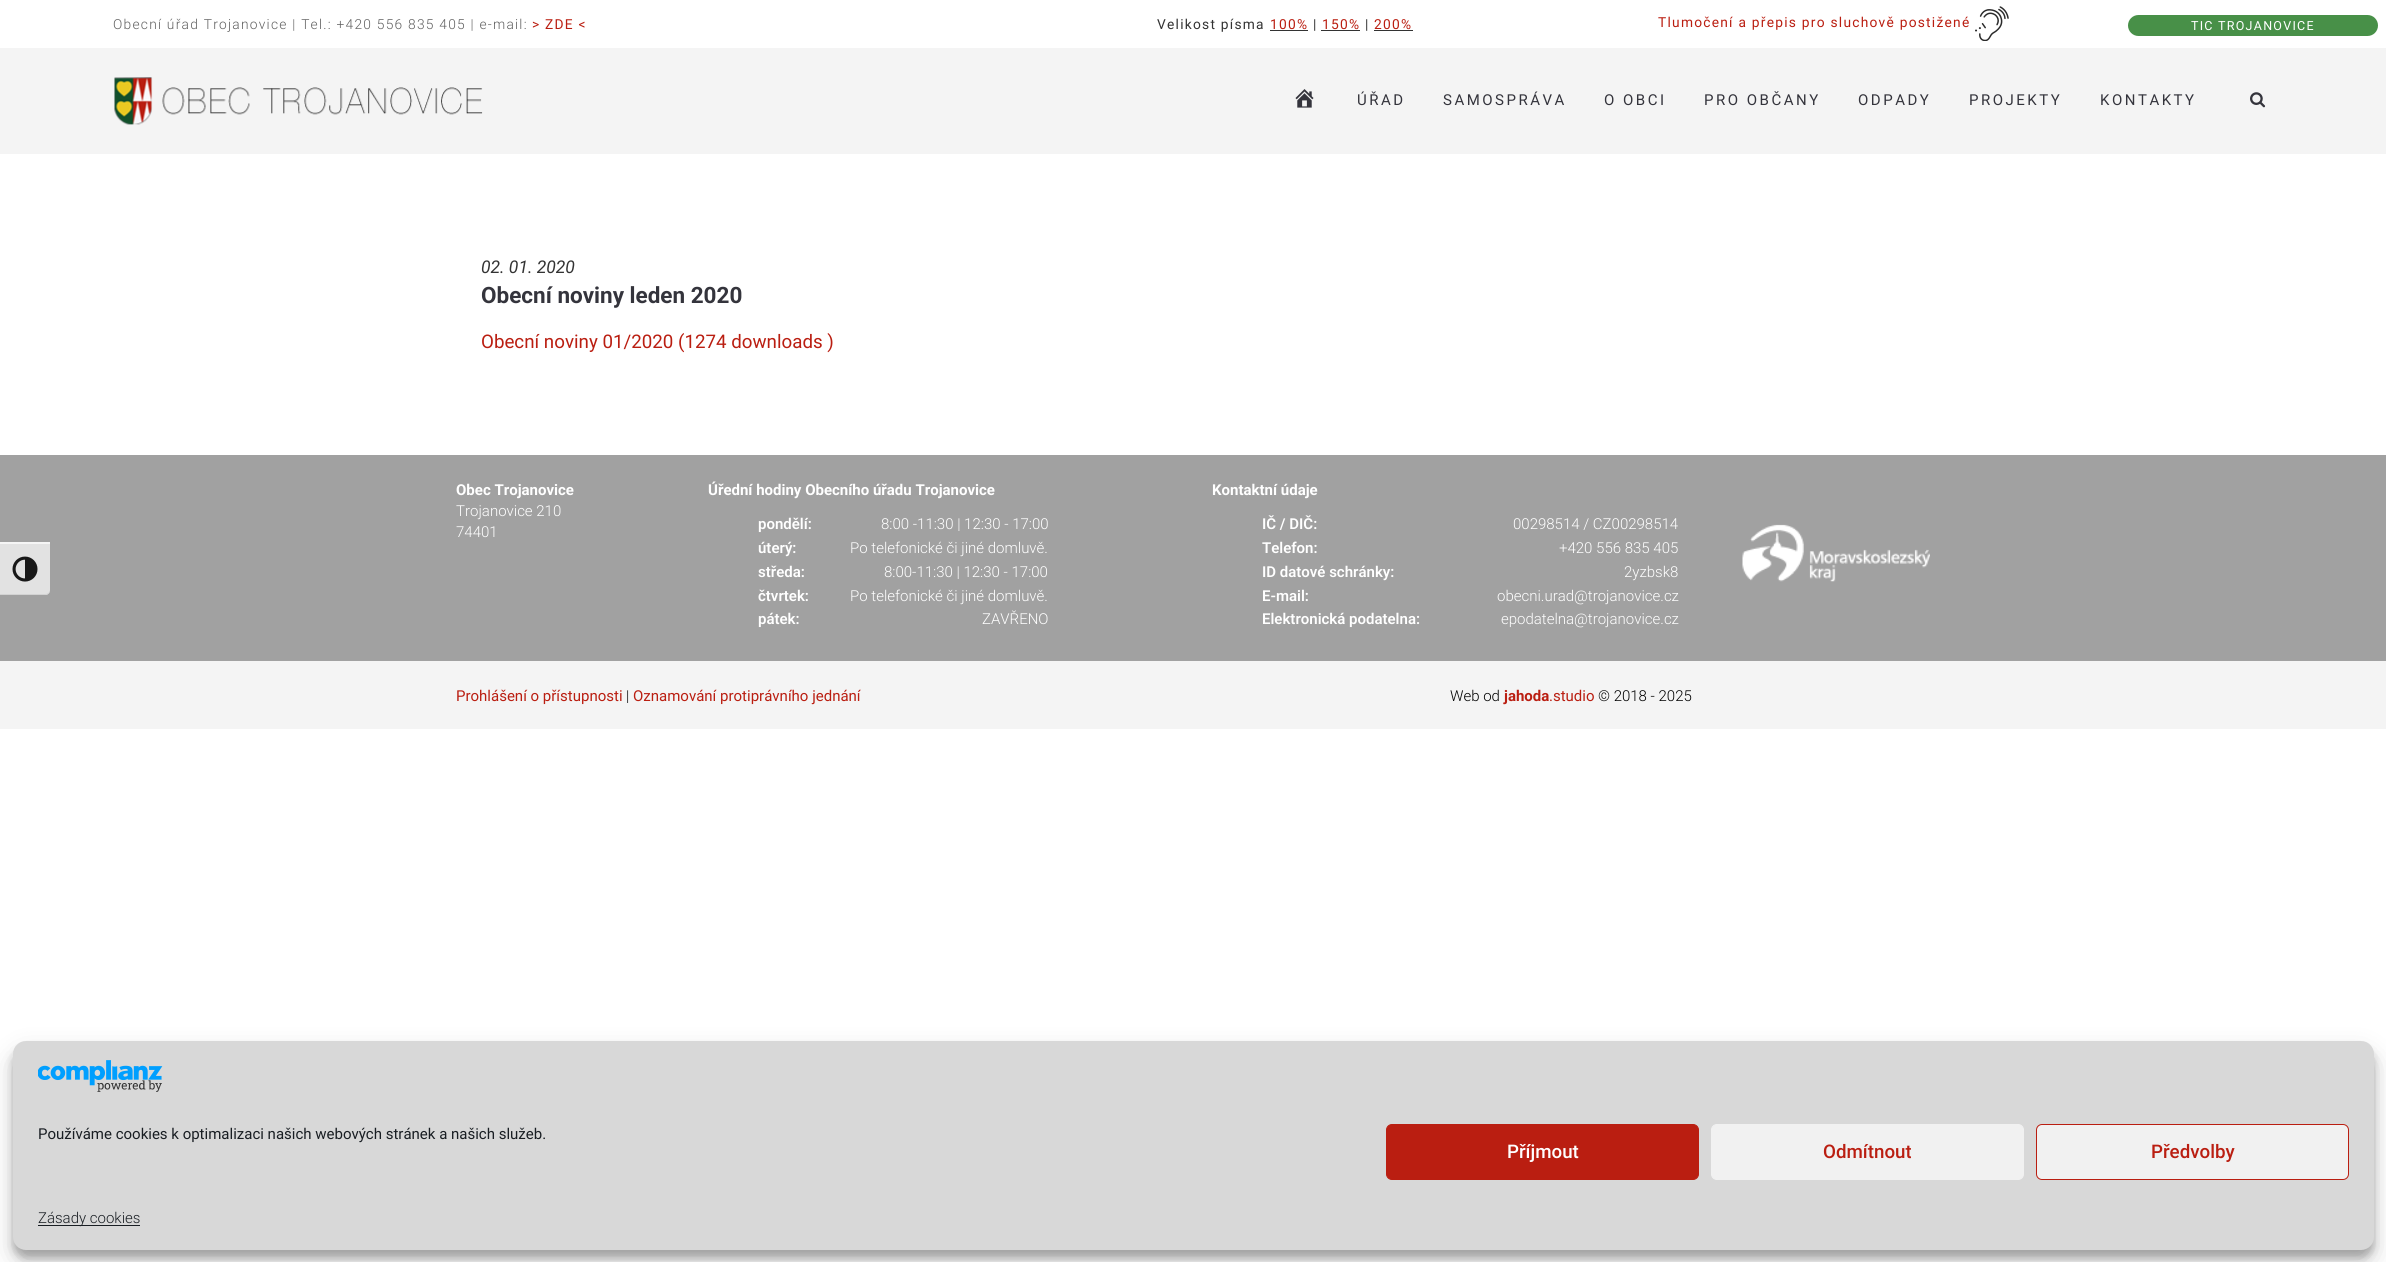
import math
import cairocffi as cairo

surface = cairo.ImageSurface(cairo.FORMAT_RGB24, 2386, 1262)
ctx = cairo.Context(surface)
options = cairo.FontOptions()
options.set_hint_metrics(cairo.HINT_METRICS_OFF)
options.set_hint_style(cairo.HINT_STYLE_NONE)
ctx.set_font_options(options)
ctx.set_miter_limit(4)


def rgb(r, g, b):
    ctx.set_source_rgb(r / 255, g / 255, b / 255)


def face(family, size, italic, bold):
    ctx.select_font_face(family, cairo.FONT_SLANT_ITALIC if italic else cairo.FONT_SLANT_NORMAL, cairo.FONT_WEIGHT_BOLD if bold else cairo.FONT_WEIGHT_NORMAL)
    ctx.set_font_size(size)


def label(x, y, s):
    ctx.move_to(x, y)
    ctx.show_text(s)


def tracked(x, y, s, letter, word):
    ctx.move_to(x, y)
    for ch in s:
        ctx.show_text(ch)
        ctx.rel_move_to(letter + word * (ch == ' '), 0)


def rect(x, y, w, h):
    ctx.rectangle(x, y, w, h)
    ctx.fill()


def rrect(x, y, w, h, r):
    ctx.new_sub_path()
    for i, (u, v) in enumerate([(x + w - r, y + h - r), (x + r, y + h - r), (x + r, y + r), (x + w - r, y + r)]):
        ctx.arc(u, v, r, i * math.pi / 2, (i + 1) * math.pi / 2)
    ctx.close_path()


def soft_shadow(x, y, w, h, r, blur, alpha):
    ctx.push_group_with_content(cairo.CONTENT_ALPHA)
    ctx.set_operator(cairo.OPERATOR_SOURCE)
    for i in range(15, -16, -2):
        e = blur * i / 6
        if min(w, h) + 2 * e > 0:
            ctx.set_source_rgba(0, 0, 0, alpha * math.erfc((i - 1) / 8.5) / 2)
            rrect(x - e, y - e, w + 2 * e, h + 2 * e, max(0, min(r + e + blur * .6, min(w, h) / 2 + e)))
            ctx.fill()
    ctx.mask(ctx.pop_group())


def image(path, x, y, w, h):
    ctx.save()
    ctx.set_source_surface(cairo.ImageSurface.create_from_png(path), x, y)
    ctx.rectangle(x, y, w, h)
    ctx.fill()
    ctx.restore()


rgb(255, 255, 255)
ctx.paint()
rgb(161, 161, 161)
rect(0, 455, 2386, 206)
rgb(226, 226, 226)
ctx.new_path()
ctx.move_to(0, 543)
ctx.line_to(50, 543)
ctx.line_to(50, 590)
ctx.curve_to(50, 593, 48, 595, 45, 595)
ctx.line_to(0, 595)
ctx.close_path()
ctx.fill()
rgb(245, 245, 245)
rect(0, 542, 50, 2)
rgb(210, 210, 210)
ctx.new_path()
ctx.move_to(0, 594)
ctx.line_to(0, 595)
ctx.line_to(45, 595)
ctx.curve_to(48, 595, 50, 593, 50, 590)
ctx.curve_to(50, 592, 48, 594, 45, 594)
ctx.close_path()
ctx.fill()
image('image0.png', 12, 556, 26, 26)
face('Roboto Light', 13.75, 0, 0)
rgb(96, 96, 96)
tracked(113, 29, 'Obecní úřad Trojanovice | Tel.: +420 556 835 405 | e-mail:', 1.25, 0)
face('Roboto', 13.75, 0, 0)
rgb(186, 30, 17)
tracked(532, 29, '> ZDE <', 1.25, 0)
rgb(51, 51, 51)
tracked(1157, 29, 'Velikost písma', 1.25, 0)
rgb(186, 30, 17)
tracked(1270, 29, '100%', 1.25, 0)
rgb(51, 51, 51)
rect(1270, 30, 38, 1)
tracked(1313, 29, '|', 1.25, 0)
rgb(186, 30, 17)
tracked(1322, 29, '150%', 1.25, 0)
rgb(51, 51, 51)
rect(1321, 30, 39, 1)
tracked(1365, 29, '|', 1.25, 0)
rgb(186, 30, 17)
tracked(1374, 29, '200%', 1.25, 0)
rgb(51, 51, 51)
rect(1374, 30, 39, 1)
rgb(186, 30, 17)
tracked(1658, 27, 'Tlumočení a přepis pro sluchově postižené', 1.25, 0)
image('image1.png', 1975, 6, 34, 35)
rgb(72, 144, 72)
rrect(2128, 15, 250, 21, 10.5)
ctx.fill()
face('Roboto', 12.5, 0, 0)
rgb(255, 255, 255)
tracked(2191, 30, 'TIC TROJANOVICE', 1.25, 0)
rgb(244, 244, 244)
rect(0, 48, 2386, 106)
image('image2.png', 114, 77, 369, 48)
image('image3.png', 2250, 92, 16, 16)
image('image4.png', 1295, 89, 19, 19)
face('Roboto', 15, 0, 0)
rgb(52, 52, 60)
tracked(1357, 105, 'ÚŘAD', 2.5, 0)
tracked(1443, 105, 'SAMOSPRÁVA', 2.5, 0)
tracked(1604, 105, 'O OBCI', 2.5, 0)
tracked(1704, 105, 'PRO OBČANY', 2.5, 0)
tracked(1858, 105, 'ODPADY', 2.5, 0)
tracked(1969, 105, 'PROJEKTY', 2.5, 0)
tracked(2100, 105, 'KONTAKTY', 2.5, 0)
face('Roboto', 17.5, 1, 0)
rgb(51, 51, 51)
label(481, 273, '02. 01. 2020')
face('Roboto', 22.5, 0, 1)
rgb(52, 52, 60)
label(481, 303, 'Obecní noviny leden 2020')
face('Roboto', 18.75, 0, 0)
rgb(186, 30, 17)
label(481, 348, 'Obecní noviny 01/2020 (1274 downloads )')
face('Roboto', 15, 0, 1)
rgb(255, 255, 255)
label(456, 495, 'Obec Trojanovice')
face('Roboto Light', 15, 0, 0)
label(456, 516, 'Trojanovice 210')
label(456, 537, '74401')
face('Roboto', 15, 0, 1)
label(708, 495, 'Úřední hodiny Obecního úřadu Trojanovice')
face('Roboto SemiBold', 15, 0, 0)
label(758, 529, 'pondělí:')
face('Roboto Light', 15, 0, 0)
label(881, 529, '8:00 -11:30 | 12:30 - 17:00')
face('Roboto SemiBold', 15, 0, 0)
label(758, 553, 'úterý:')
face('Roboto Light', 15, 0, 0)
label(850, 553, 'Po telefonické či jiné domluvě.')
face('Roboto SemiBold', 15, 0, 0)
label(758, 577, 'středa:')
face('Roboto Light', 15, 0, 0)
label(884, 577, '8:00-11:30 | 12:30 - 17:00')
face('Roboto SemiBold', 15, 0, 0)
label(758, 601, 'čtvrtek:')
face('Roboto Light', 15, 0, 0)
label(850, 601, 'Po telefonické či jiné domluvě.')
face('Roboto SemiBold', 15, 0, 0)
label(758, 624, 'pátek:')
face('Roboto Light', 15, 0, 0)
label(982, 624, 'ZAVŘENO')
face('Roboto', 15, 0, 1)
label(1212, 495, 'Kontaktní údaje')
face('Roboto SemiBold', 15, 0, 0)
label(1262, 529, 'IČ / DIČ:')
face('Roboto Light', 15, 0, 0)
label(1513, 529, '00298514 / CZ00298514')
face('Roboto SemiBold', 15, 0, 0)
label(1262, 553, 'Telefon:')
face('Roboto Light', 15, 0, 0)
label(1559, 553, '+420 556 835 405')
face('Roboto SemiBold', 15, 0, 0)
label(1262, 577, 'ID datové schránky:')
face('Roboto Light', 15, 0, 0)
label(1624, 577, '2yzbsk8')
face('Roboto SemiBold', 15, 0, 0)
label(1262, 601, 'E-mail:')
face('Roboto Light', 15, 0, 0)
label(1497, 601, 'obecni.urad@trojanovice.cz')
face('Roboto SemiBold', 15, 0, 0)
label(1262, 624, 'Elektronická podatelna:')
face('Roboto Light', 15, 0, 0)
label(1501, 624, 'epodatelna@trojanovice.cz')
image('image5.png', 1742, 524, 188, 58)
rgb(244, 244, 244)
rect(0, 661, 2386, 68)
face('Roboto', 15, 0, 0)
rgb(186, 30, 17)
label(456, 701, 'Prohlášení o přístupnosti')
face('Roboto Light', 15, 0, 0)
rgb(0, 0, 0)
label(626, 701, '|')
face('Roboto', 15, 0, 0)
rgb(186, 30, 17)
label(633, 701, 'Oznamování protiprávního jednání')
face('Roboto Light', 15, 0, 0)
rgb(0, 0, 0)
label(1450, 701, 'Web od')
face('Roboto', 15, 0, 1)
rgb(186, 30, 17)
label(1504, 701, 'jahoda')
face('Roboto', 15, 0, 0)
label(1549, 701, '.studio')
face('Roboto Light', 15, 0, 0)
rgb(0, 0, 0)
label(1598, 701, '© 2018 - 2025')
rgb(0, 0, 0)
soft_shadow(13, 1049, 2361, 209, 13, 4, 0.23)
soft_shadow(13, 1054, 2361, 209, 13, 12.5, 0.19)
rgb(216, 216, 216)
rrect(13, 1041, 2361, 209, 13)
ctx.fill()
image('image6.png', 38, 1060, 125, 32)
face('Roboto', 15, 0, 0)
rgb(25, 30, 35)
label(38, 1139, 'Používáme cookies k optimalizaci našich webových stránek a našich služeb.')
rgb(186, 30, 17)
rrect(1386.5, 1124.5, 312, 55, 5.5)
ctx.fill_preserve()
ctx.set_line_width(1)
ctx.stroke()
face('Roboto Medium', 18.75, 0, 0)
rgb(255, 255, 255)
label(1507, 1158, 'Příjmout')
rgb(241, 241, 241)
rrect(1711.5, 1124.5, 312, 55, 5.5)
ctx.fill_preserve()
ctx.stroke()
rgb(186, 30, 17)
label(1823, 1158, 'Odmítnout')
rgb(241, 241, 241)
rrect(2036.5, 1124.5, 312, 55, 5.5)
ctx.fill_preserve()
rgb(186, 30, 17)
ctx.stroke()
label(2151, 1158, 'Předvolby')
rgb(25, 30, 35)
rect(38, 1225, 102, 1)
face('Roboto Light', 15, 0, 0)
label(38, 1223, 'Zásady cookies')
surface.write_to_png('render.png')
